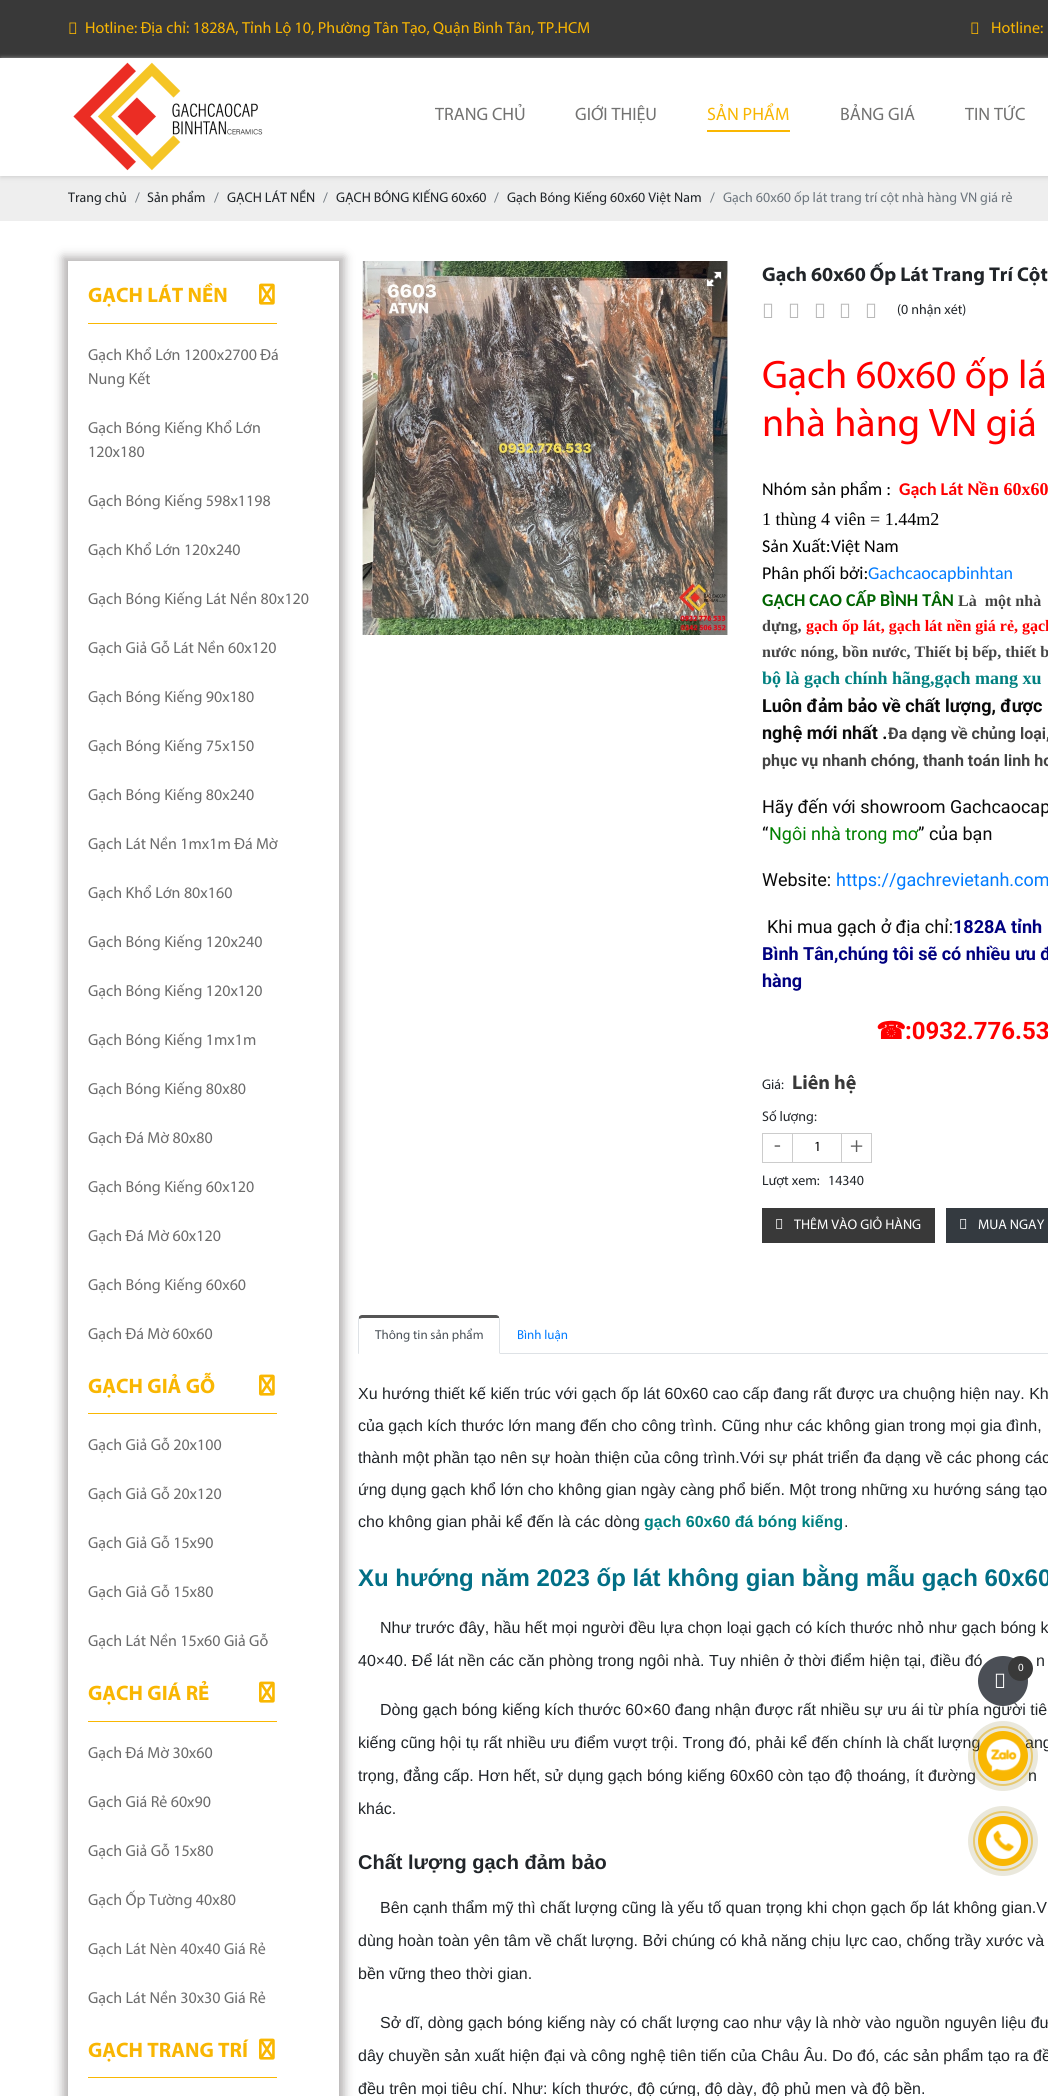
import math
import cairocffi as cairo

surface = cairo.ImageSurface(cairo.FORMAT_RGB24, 1048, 2096)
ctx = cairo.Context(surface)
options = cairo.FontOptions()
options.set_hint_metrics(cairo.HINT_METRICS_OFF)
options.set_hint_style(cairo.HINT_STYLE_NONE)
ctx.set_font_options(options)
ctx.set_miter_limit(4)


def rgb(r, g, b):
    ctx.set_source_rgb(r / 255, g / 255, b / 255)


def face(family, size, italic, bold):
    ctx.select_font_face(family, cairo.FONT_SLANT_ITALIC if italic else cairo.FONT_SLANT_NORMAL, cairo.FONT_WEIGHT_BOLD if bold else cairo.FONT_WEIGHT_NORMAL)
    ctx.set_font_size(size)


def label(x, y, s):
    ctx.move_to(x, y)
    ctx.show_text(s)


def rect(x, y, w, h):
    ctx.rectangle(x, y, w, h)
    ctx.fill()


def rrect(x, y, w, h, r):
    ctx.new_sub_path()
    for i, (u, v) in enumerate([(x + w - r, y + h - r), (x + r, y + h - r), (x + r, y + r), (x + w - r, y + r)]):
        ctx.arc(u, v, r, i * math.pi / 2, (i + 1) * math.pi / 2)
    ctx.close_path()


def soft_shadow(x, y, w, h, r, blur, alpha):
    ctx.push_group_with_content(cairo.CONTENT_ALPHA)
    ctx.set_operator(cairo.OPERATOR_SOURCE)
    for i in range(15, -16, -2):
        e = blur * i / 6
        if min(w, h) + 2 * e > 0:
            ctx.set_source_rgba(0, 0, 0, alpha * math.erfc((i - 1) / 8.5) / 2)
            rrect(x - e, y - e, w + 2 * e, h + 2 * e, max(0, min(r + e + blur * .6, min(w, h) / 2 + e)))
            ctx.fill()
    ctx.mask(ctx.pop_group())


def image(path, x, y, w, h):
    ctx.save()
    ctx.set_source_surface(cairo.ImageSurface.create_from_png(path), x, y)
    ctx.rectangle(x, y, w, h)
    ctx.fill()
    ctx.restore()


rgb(255, 255, 255)
ctx.paint()
rgb(57, 57, 57)
rect(0, 0, 1048, 58)
image('image0.png', 69, 22, 8, 12)
face('Myriad', 16, 0, 0)
rgb(249, 182, 2)
label(85, 33, 'Hotline: Địa chỉ: 1828A, Tỉnh Lộ 10, Phường Tân Tạo, Quận Bình Tân, TP.HCM')
image('image0.png', 971, 22, 8, 12)
label(991, 33, 'Hotline:')
rgb(238, 238, 238)
rect(0, 176, 1048, 45)
ctx.save()
ctx.set_fill_rule(cairo.FILL_RULE_EVEN_ODD)
ctx.new_path()
ctx.move_to(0, 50)
ctx.line_to(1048, 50)
ctx.line_to(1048, 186)
ctx.line_to(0, 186)
ctx.close_path()
ctx.move_to(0, 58)
ctx.line_to(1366, 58)
ctx.line_to(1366, 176)
ctx.line_to(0, 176)
ctx.close_path()
ctx.clip()
rgb(204, 204, 204)
soft_shadow(1, 59, 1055, 118, 0, 2.5, 1)
ctx.restore()
image('image1.png', 73, 62, 190, 109)
face('Myriad', 18, 0, 0)
rgb(114, 114, 113)
label(435, 120, 'TRANG CHỦ')
label(575, 120, 'GIỚI THIỆU')
rgb(250, 183, 2)
rect(707, 130, 83, 2)
rgb(249, 182, 2)
label(707, 120, 'SẢN PHẨM')
rgb(114, 114, 113)
label(840, 120, 'BẢNG GIÁ')
label(965, 120, 'TIN TỨC')
face('Myriad', 14, 0, 0)
rgb(33, 37, 41)
label(68, 202, 'Trang chủ')
rgb(108, 117, 125)
label(135, 202, '/')
rgb(33, 37, 41)
label(147, 202, 'Sản phẩm')
rgb(108, 117, 125)
label(214, 202, '/')
rgb(33, 37, 41)
label(227, 202, 'GẠCH LÁT NỀN')
rgb(108, 117, 125)
label(323, 202, '/')
rgb(33, 37, 41)
label(336, 202, 'GẠCH BÓNG KIẾNG 60x60')
rgb(108, 117, 125)
label(494, 202, '/')
rgb(33, 37, 41)
label(507, 202, 'Gạch Bóng Kiếng 60x60 Việt Nam')
rgb(108, 117, 125)
label(710, 202, '/')
label(723, 202, 'Gạch 60x60 ốp lát trang trí cột nhà hàng VN giá rẻ')
ctx.save()
ctx.set_fill_rule(cairo.FILL_RULE_EVEN_ODD)
ctx.new_path()
ctx.move_to(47, 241)
ctx.line_to(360, 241)
ctx.line_to(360, 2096)
ctx.line_to(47, 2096)
ctx.close_path()
ctx.move_to(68, 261)
ctx.line_to(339, 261)
ctx.line_to(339, 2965)
ctx.line_to(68, 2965)
ctx.close_path()
ctx.clip()
rgb(179, 176, 176)
soft_shadow(63, 257, 281, 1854, 0, 5, 1)
ctx.restore()
rgb(249, 183, 2)
rect(88, 323, 189, 1)
face('Myriad', 21, 0, 1)
rgb(249, 182, 2)
label(88, 302, 'GẠCH LÁT NỀN')
image('image2.png', 259, 283, 16, 22)
face('Myriad', 16, 0, 0)
rgb(107, 107, 107)
label(88, 360, 'Gạch Khổ Lớn 1200x2700 Đá')
label(88, 384, 'Nung Kết')
label(88, 433, 'Gạch Bóng Kiếng Khổ Lớn')
label(88, 457, '120x180')
label(88, 506, 'Gạch Bóng Kiếng 598x1198')
label(88, 555, 'Gạch Khổ Lớn 120x240')
label(88, 604, 'Gạch Bóng Kiếng Lát Nền 80x120')
label(88, 653, 'Gạch Giả Gỗ Lát Nền 60x120')
label(88, 702, 'Gạch Bóng Kiếng 90x180')
label(88, 751, 'Gạch Bóng Kiếng 75x150')
label(88, 800, 'Gạch Bóng Kiếng 80x240')
label(88, 849, 'Gạch Lát Nền 1mx1m Đá Mờ')
label(88, 898, 'Gạch Khổ Lớn 80x160')
label(88, 947, 'Gạch Bóng Kiếng 120x240')
label(88, 996, 'Gạch Bóng Kiếng 120x120')
label(88, 1045, 'Gạch Bóng Kiếng 1mx1m')
label(88, 1094, 'Gạch Bóng Kiếng 80x80')
label(88, 1143, 'Gạch Đá Mờ 80x80')
label(88, 1192, 'Gạch Bóng Kiếng 60x120')
label(88, 1241, 'Gạch Đá Mờ 60x120')
label(88, 1290, 'Gạch Bóng Kiếng 60x60')
label(88, 1339, 'Gạch Đá Mờ 60x60')
rgb(249, 183, 2)
rect(88, 1413, 189, 1)
face('Myriad', 21, 0, 1)
rgb(249, 182, 2)
label(88, 1393, 'GẠCH GIẢ GỖ')
image('image2.png', 259, 1374, 16, 22)
face('Myriad', 16, 0, 0)
rgb(107, 107, 107)
label(88, 1450, 'Gạch Giả Gỗ 20x100')
label(88, 1499, 'Gạch Giả Gỗ 20x120')
label(88, 1548, 'Gạch Giả Gỗ 15x90')
label(88, 1597, 'Gạch Giả Gỗ 15x80')
label(88, 1646, 'Gạch Lát Nền 15x60 Giả Gỗ')
rgb(249, 183, 2)
rect(88, 1721, 189, 1)
face('Myriad', 21, 0, 1)
rgb(249, 182, 2)
label(88, 1700, 'GẠCH GIÁ RẺ')
image('image2.png', 259, 1681, 16, 22)
face('Myriad', 16, 0, 0)
rgb(107, 107, 107)
label(88, 1758, 'Gạch Đá Mờ 30x60')
label(88, 1807, 'Gạch Giá Rẻ 60x90')
label(88, 1856, 'Gạch Giả Gỗ 15x80')
label(88, 1905, 'Gạch Ốp Tường 40x80')
label(88, 1954, 'Gạch Lát Nèn 40x40 Giá Rẻ')
label(88, 2003, 'Gạch Lát Nền 30x30 Giá Rẻ')
rgb(249, 183, 2)
rect(88, 2077, 189, 1)
face('Myriad', 21, 0, 1)
rgb(249, 182, 2)
label(88, 2057, 'GẠCH TRANG TRÍ')
image('image2.png', 259, 2038, 16, 22)
image('image3.png', 362, 261, 366, 374)
image('image4.png', 702, 269, 22, 22)
face('Myriad', 20, 0, 1)
rgb(33, 37, 41)
label(762, 281, 'Gạch 60x60 Ốp Lát Trang Trí Cột')
image('image5.png', 763, 303, 10, 15)
image('image5.png', 789, 303, 10, 15)
image('image5.png', 815, 303, 10, 15)
image('image5.png', 840, 303, 10, 15)
image('image5.png', 866, 303, 10, 15)
face('Myriad', 14, 0, 0)
label(897, 314, '(0 nhận xét)')
face('Myriad', 40, 0, 0)
rgb(255, 0, 0)
label(762, 388, 'Gạch 60x60 ốp lá')
label(762, 436, 'nhà hàng VN giá')
face('Carlito', 18, 0, 0)
rgb(0, 0, 0)
label(762, 495, 'Nhóm sản phẩm :')
face('Carlito', 18, 0, 1)
rgb(255, 0, 0)
label(899, 495, 'Gạch Lát Nề')
face('Liberation Serif', 18, 0, 1)
label(989, 495, 'n 60x60')
face('Liberation Serif', 18, 0, 0)
rgb(0, 0, 0)
label(762, 525, '1 thùng 4 viên = 1.44m2')
face('Carlito', 18, 0, 0)
label(762, 552, 'Sản Xuất:Việt Nam')
label(762, 579, 'Phân phối bởi:')
rgb(0, 123, 255)
label(868, 579, 'Gachcaocapbinhtan')
face('Carlito', 18, 0, 1)
rgb(0, 100, 0)
label(762, 606, 'GẠCH CAO CẤP BÌNH TÂN')
face('Liberation Serif', 16, 0, 1)
rgb(68, 68, 68)
label(958, 606, 'Là  một nhà')
label(762, 631, 'dựng,')
rgb(255, 0, 0)
label(806, 631, 'gạch ốp lát, gạch lát nền giá rẻ, gạch')
rgb(68, 68, 68)
label(762, 657, 'nước nóng, bồn nước, Thiết bị bếp, thiết b')
face('Liberation Serif', 18, 0, 1)
rgb(0, 128, 128)
label(762, 684, 'bộ là gạch chính hãng,gạch mang xu')
face('Roboto', 18, 0, 1)
rgb(10, 10, 10)
label(762, 712, 'Luôn đảm bảo về chất lượng, được')
label(762, 739, 'nghệ mới nhất .')
face('Roboto', 16, 0, 1)
rgb(68, 68, 68)
label(888, 739, 'Đa dạng về chủng loại,')
label(762, 766, 'phục vụ nhanh chóng, thanh toán linh ho')
face('Roboto', 18, 0, 0)
rgb(10, 10, 10)
label(762, 813, 'Hãy đến với showroom Gachcaocap')
label(762, 840, '“')
rgb(0, 128, 0)
label(769, 840, 'Ngôi nhà trong mơ')
rgb(10, 10, 10)
label(918, 840, '” của bạn')
label(762, 886, 'Website:')
rgb(0, 123, 255)
label(836, 886, 'https://gachrevietanh.com')
rgb(10, 10, 10)
label(767, 933, 'Khi mua gạch ở địa chỉ:')
face('Roboto', 18, 0, 1)
rgb(0, 0, 128)
label(953, 933, '1828A tỉnh')
label(762, 960, 'Bình Tân,chúng tôi sẽ có nhiều ưu đ')
label(762, 987, 'hàng')
face('DejaVu Sans', 24, 0, 1)
rgb(255, 0, 0)
label(876, 1039, '☎')
face('Roboto', 24, 0, 1)
label(905, 1039, ':0932.776.53')
face('Myriad', 14, 0, 0)
rgb(33, 37, 41)
label(762, 1089, 'Giá:')
face('Myriad', 20, 0, 1)
rgb(57, 57, 57)
label(792, 1089, 'Liên hệ')
face('Myriad', 14, 0, 0)
rgb(33, 37, 41)
label(762, 1121, 'Số lượng:')
rgb(204, 204, 204)
rect(762, 1133, 30, 1)
rect(762, 1162, 30, 1)
rect(762, 1133, 1, 30)
face('Myriad', 22, 0, 0)
rgb(95, 95, 95)
label(774, 1152, '-')
ctx.rectangle(792.5, 1133.5, 49, 29)
rgb(204, 204, 204)
ctx.set_line_width(1)
ctx.stroke()
face('Myriad', 14, 0, 0)
rgb(0, 0, 0)
label(814, 1151, '1')
rgb(204, 204, 204)
rect(842, 1133, 30, 1)
rect(871, 1133, 1, 30)
rect(842, 1162, 30, 1)
face('Myriad', 22, 0, 0)
rgb(95, 95, 95)
label(850, 1152, '+')
face('Myriad', 14, 0, 0)
rgb(33, 37, 41)
label(762, 1185, 'Lượt xem:')
label(828, 1185, '14340')
rgb(57, 57, 57)
rect(762, 1208, 173, 35)
image('image6.png', 776, 1219, 7, 10)
rgb(255, 255, 255)
label(794, 1229, 'THÊM VÀO GIỎ HÀNG')
rgb(52, 58, 64)
rect(946, 1208, 102, 35)
image('image7.png', 960, 1219, 7, 10)
rgb(255, 255, 255)
label(978, 1229, 'MUA NGAY')
rgb(222, 226, 230)
rect(358, 1353, 690, 1)
rgb(85, 85, 85)
ctx.new_path()
ctx.move_to(362, 1315)
ctx.curve_to(361, 1315, 359, 1316, 359, 1317)
ctx.line_to(359, 1319)
ctx.line_to(362, 1318)
ctx.line_to(496, 1318)
ctx.curve_to(498, 1318, 498, 1318, 499, 1318)
ctx.line_to(499, 1317)
ctx.curve_to(499, 1316, 497, 1315, 496, 1315)
ctx.close_path()
ctx.fill()
rgb(222, 226, 230)
ctx.new_path()
ctx.move_to(500, 1354)
ctx.line_to(500, 1319)
ctx.curve_to(500, 1318.5, 500, 1317.5, 499.5, 1317)
ctx.line_to(499, 1318.5)
ctx.line_to(499, 1353)
ctx.close_path()
ctx.fill()
rgb(255, 255, 255)
ctx.new_path()
ctx.move_to(500, 1354)
ctx.line_to(499, 1353)
ctx.line_to(359, 1353)
ctx.line_to(358, 1354)
ctx.close_path()
ctx.fill()
rgb(222, 226, 230)
ctx.new_path()
ctx.move_to(358, 1354)
ctx.line_to(359, 1353)
ctx.line_to(359, 1319)
ctx.line_to(359.5, 1319)
ctx.line_to(358.5, 1317)
ctx.line_to(358, 1319)
ctx.close_path()
ctx.fill()
face('Myriad', 13, 0, 0)
rgb(73, 80, 87)
label(375, 1339, 'Thông tin sản phẩm')
rgb(0, 123, 255)
label(517, 1339, 'Bình luận')
face('Liberation Sans', 16, 0, 0)
rgb(33, 37, 41)
label(358, 1399, 'Xu hướng thiết kế kiến trúc với gạch ốp lát 60x60 cao cấp đang rất được ưa chuộng hiện nay. Kh')
label(358, 1431, 'của gạch kích thước lớn mang đến cho công trình. Cũng như các không gian trong mọi gia đình,')
label(358, 1463, 'thành một phần tạo nên sự hoàn thiện của công trình.Với sự phát triển đa dạng về các phong các')
label(358, 1495, 'ứng dụng gạch khổ lớn cho không gian ngày càng phổ biến. Một trong những xu hướng sáng tạo')
label(358, 1527, 'cho không gian phải kể đến là các dòng')
face('Liberation Sans', 16, 0, 1)
rgb(0, 128, 128)
label(644, 1527, 'gạch 60x60 đá bóng kiếng')
face('Liberation Sans', 16, 0, 0)
rgb(33, 37, 41)
label(844, 1527, '.')
face('Liberation Sans', 24, 0, 1)
rgb(1, 111, 134)
label(358, 1586, 'Xu hướng năm 2023 ốp lát không gian bằng mẫu gạch 60x60')
face('Liberation Sans', 16, 0, 0)
rgb(33, 37, 41)
label(380, 1633, 'Như trước đây, hầu hết mọi người đều lựa chọn loại gạch có kích thước nhỏ như gạch bóng k')
label(358, 1666, '40×40. Để lát nền các căn phòng trong ngôi nhà. Tuy nhiên ở thời điểm hiện tại, điều đó')
label(1036, 1666, 'n')
label(380, 1715, 'Dòng gạch bóng kiếng kích thước 60×60 đang nhận được rất nhiều sự ưu ái từ phía người tiê')
label(358, 1748, 'kiếng cũng hội tụ rất nhiều ưu điểm vượt trội. Trong đó, phải kể đến chính là chất lượng')
label(1025, 1748, 'ang')
label(358, 1781, 'trọng, đẳng cấp. Hơn hết, sử dụng gạch bóng kiếng 60x60 còn tạo độ thoáng, ít đường')
label(1028, 1781, 'n')
label(358, 1814, 'khác.')
face('Liberation Sans', 20, 0, 1)
label(358, 1869, 'Chất lượng gạch đảm bảo')
face('Liberation Sans', 16, 0, 0)
label(380, 1913, 'Bên cạnh thẩm mỹ thì chất lượng cũng là yếu tố quan trọng khi chọn gạch ốp lát không gian.V')
label(358, 1946, 'dùng hoàn toàn yên tâm về chất lượng. Bởi chúng có khả năng chịu lực cao, chống trầy xước và')
label(358, 1979, 'bền vững theo thời gian.')
label(380, 2028, 'Sở dĩ, dòng gạch bóng kiếng này có chất lượng cao như vậy là nhờ vào nguồn nguyên liệu đư')
label(358, 2061, 'dây chuyền sản xuất hiện đại và công nghệ tiên tiến của Châu Âu. Do đó, các sản phẩm tạo ra đề')
label(358, 2094, 'đều trên mọi tiêu chí. Như: kích thước, độ cứng, độ dày, độ phủ men và độ bền.')
rgb(75, 79, 86)
ctx.new_path()
ctx.arc(1003, 1681, 25, 0, 2 * math.pi)
ctx.fill()
rgb(57, 57, 57)
ctx.arc(1020.5, 1668.5, 12.5, 0, 2 * math.pi)
ctx.fill()
face('Myriad', 11, 0, 0)
rgb(255, 255, 255)
label(1018, 1671, '0')
image('image8.png', 995, 1673, 10, 15)
ctx.arc(1003, 1756, 29, 0, 2 * math.pi)
ctx.set_source_rgba(0.976, 0.718, 0.008, 0.5)
ctx.set_line_width(2)
ctx.stroke()
ctx.set_source_rgba(0.404, 0.345, 0.027, 0.14)
ctx.arc(1003, 1756, 35, 0, 2 * math.pi)
ctx.fill()
rgb(249, 183, 2)
ctx.arc(1003, 1756, 25, 0, 2 * math.pi)
ctx.fill()
image('image9.png', 986, 1739, 35, 33)
ctx.arc(1003, 1841, 29, 0, 2 * math.pi)
rgb(252, 219, 129)
ctx.stroke()
ctx.set_source_rgba(0.404, 0.345, 0.027, 0.14)
ctx.arc(1003, 1841, 35, 0, 2 * math.pi)
ctx.fill()
rgb(249, 183, 2)
ctx.arc(1003, 1841, 25, 0, 2 * math.pi)
ctx.fill()
image('image10.png', 986, 1824, 35, 35)
surface.write_to_png('render.png')
